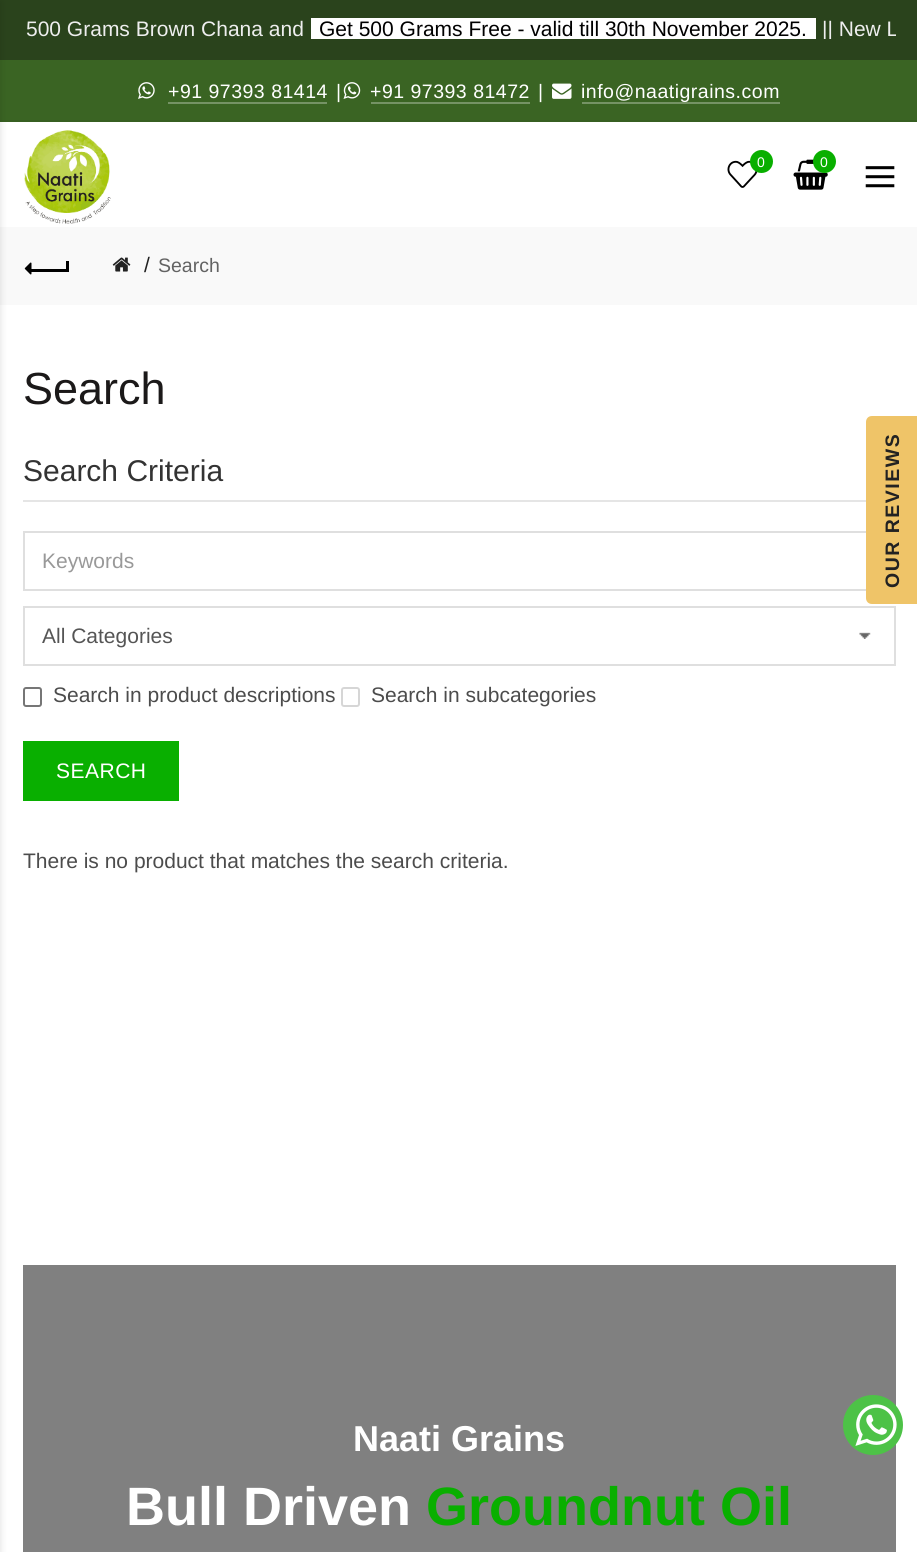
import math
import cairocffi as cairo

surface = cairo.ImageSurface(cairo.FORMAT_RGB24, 917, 1552)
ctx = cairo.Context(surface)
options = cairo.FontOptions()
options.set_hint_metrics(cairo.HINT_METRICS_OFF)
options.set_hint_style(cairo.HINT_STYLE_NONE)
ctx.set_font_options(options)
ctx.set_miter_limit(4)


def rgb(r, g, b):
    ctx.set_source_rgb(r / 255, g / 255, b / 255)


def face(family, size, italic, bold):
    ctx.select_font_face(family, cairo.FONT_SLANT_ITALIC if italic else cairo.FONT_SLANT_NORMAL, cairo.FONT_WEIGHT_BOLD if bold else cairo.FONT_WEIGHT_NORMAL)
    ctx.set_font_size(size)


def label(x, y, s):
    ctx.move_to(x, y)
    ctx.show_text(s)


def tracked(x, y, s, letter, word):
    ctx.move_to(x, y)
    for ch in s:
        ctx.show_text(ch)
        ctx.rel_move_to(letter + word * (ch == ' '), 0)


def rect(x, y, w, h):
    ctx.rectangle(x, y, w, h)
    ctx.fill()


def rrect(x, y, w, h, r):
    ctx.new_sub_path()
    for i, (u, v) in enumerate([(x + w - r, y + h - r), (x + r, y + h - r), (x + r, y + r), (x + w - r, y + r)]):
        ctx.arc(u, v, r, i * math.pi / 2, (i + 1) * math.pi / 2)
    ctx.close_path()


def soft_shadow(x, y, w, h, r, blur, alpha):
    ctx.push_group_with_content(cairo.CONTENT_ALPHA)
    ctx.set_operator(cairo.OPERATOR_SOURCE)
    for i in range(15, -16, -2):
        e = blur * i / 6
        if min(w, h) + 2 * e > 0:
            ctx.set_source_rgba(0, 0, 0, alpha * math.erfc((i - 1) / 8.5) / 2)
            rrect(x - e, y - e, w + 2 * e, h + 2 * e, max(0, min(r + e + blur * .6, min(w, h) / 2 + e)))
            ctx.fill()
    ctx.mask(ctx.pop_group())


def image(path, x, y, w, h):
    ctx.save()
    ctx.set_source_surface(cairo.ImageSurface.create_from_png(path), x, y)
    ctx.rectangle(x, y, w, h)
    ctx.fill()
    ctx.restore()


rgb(255, 255, 255)
ctx.paint()
rgb(42, 67, 28)
rect(0, 0, 917, 60)
rgb(58, 100, 35)
rect(0, 60, 917, 60)
rgb(55, 95, 33)
rect(0, 120, 917, 2)
rgb(249, 249, 249)
rect(0, 227, 917, 78)
rgb(0, 0, 0)
soft_shadow(-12, 2, 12, 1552, 0, 4, 0.13)
face('Liberation Sans', 21, 0, 0)
rgb(238, 238, 238)
label(26, 36, '500 Grams Brown Chana and')
rgb(255, 255, 255)
rect(311, 18, 505, 21)
rgb(0, 0, 0)
label(319, 36, 'Get 500 Grams Free - valid till 30th November 2025.')
ctx.save()
ctx.rectangle(23, 18, 873, 21)
ctx.clip()
rgb(238, 238, 238)
label(822, 36, '|| New L')
ctx.restore()
image('image0.png', 138, 82, 17, 17)
face('Liberation Sans', 19.5, 0, 0)
rgb(255, 255, 255)
tracked(168, 98, '+91 97393 81414', 0.5, 0)
rgb(117, 147, 101)
rect(168, 102, 159, 2)
rgb(255, 255, 255)
tracked(336, 98, '|', 0.5, 0)
image('image1.png', 343, 82, 18, 17)
tracked(370, 98, '+91 97393 81472', 0.5, 0)
rgb(117, 147, 101)
rect(371, 102, 159, 2)
rgb(255, 255, 255)
tracked(538, 98, '|', 0.5, 0)
image('image2.png', 552, 83, 20, 16)
rgb(117, 147, 101)
rect(582, 102, 198, 2)
rgb(255, 255, 255)
tracked(581, 98, 'info@naatigrains.com', 0.5, 0)
image('image3.png', 24, 130, 87, 94)
image('image4.png', 727, 160, 31, 28)
rgb(9, 175, 0)
ctx.arc(761.5, 161.5, 11.5, 0, 2 * math.pi)
ctx.fill()
face('Liberation Sans', 14, 0, 0)
rgb(255, 255, 255)
label(757, 167, '0')
image('image5.png', 793, 159, 35, 31)
rgb(9, 175, 0)
ctx.arc(824.5, 161.5, 11.5, 0, 2 * math.pi)
ctx.fill()
rgb(255, 255, 255)
label(820, 167, '0')
image('image6.png', 865, 166, 30, 22)
rgb(0, 0, 0)
rect(30, 269, 38, 3)
image('image7.png', 24, 262, 8, 13)
rect(66, 261, 3, 11)
image('image8.png', 112, 257, 19, 15)
face('Liberation Sans', 21, 0, 0)
rgb(34, 34, 34)
label(144, 272, '/')
face('Liberation Sans', 19.5, 0, 0)
rgb(99, 99, 99)
label(158, 272, 'Search')
face('Liberation Sans', 45, 0, 0)
rgb(27, 25, 25)
label(23, 404, 'Search')
rgb(229, 229, 229)
rect(23, 500, 843, 2)
face('Liberation Sans', 30, 0, 0)
rgb(51, 51, 51)
label(23, 481, 'Search Criteria')
ctx.rectangle(24, 532, 871, 58)
rgb(223, 223, 223)
ctx.stroke()
face('Liberation Sans', 21, 0, 0)
rgb(153, 153, 153)
label(42, 568, 'Keywords')
image('image9.png', 859, 632, 12, 7)
ctx.rectangle(24, 607, 871, 58)
rgb(223, 223, 223)
ctx.stroke()
rgb(85, 85, 85)
label(42, 643, 'All Categories')
rrect(24, 688, 17, 18, 2)
rgb(118, 118, 118)
ctx.stroke()
rgb(76, 76, 76)
label(53, 702, 'Search in product descriptions')
rrect(342, 688, 17, 18, 2)
rgb(214, 214, 214)
ctx.stroke()
rgb(76, 76, 76)
label(371, 702, 'Search in subcategories')
rgb(9, 175, 0)
rect(23, 741, 156, 60)
rgb(255, 255, 255)
tracked(56, 778, 'SEARCH', 0.5, 0)
rgb(76, 76, 76)
label(23, 868, 'There is no product that matches the search criteria.')
rgb(239, 196, 104)
ctx.new_path()
ctx.move_to(866, 598)
ctx.line_to(866, 422)
ctx.curve_to(866, 419, 868, 416, 872, 416)
ctx.line_to(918, 416)
ctx.line_to(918, 604)
ctx.line_to(872, 604)
ctx.curve_to(868, 604, 866, 601, 866, 598)
ctx.close_path()
ctx.fill()
face('Liberation Sans', 19.5, 0, 1)
rgb(34, 34, 34)
ctx.save()
ctx.translate(899, 588)
ctx.rotate(-90 * math.pi / 180)
tracked(0, 0, 'OUR REVIEWS', 1.5, 0)
ctx.restore()
rgb(128, 128, 128)
rect(23, 1265, 873, 287)
face('Liberation Sans', 36, 0, 1)
rgb(255, 255, 255)
label(353, 1451, 'Naati Grains')
face('Liberation Sans', 54, 0, 1)
label(126, 1525, 'Bull Driven')
rgb(9, 175, 0)
label(426, 1525, 'Groundnut Oil')
rgb(77, 194, 71)
ctx.new_path()
ctx.arc(873, 1425, 30, 0, 2 * math.pi)
ctx.fill()
image('image10.png', 855, 1404, 42, 42)
surface.write_to_png('render.png')
